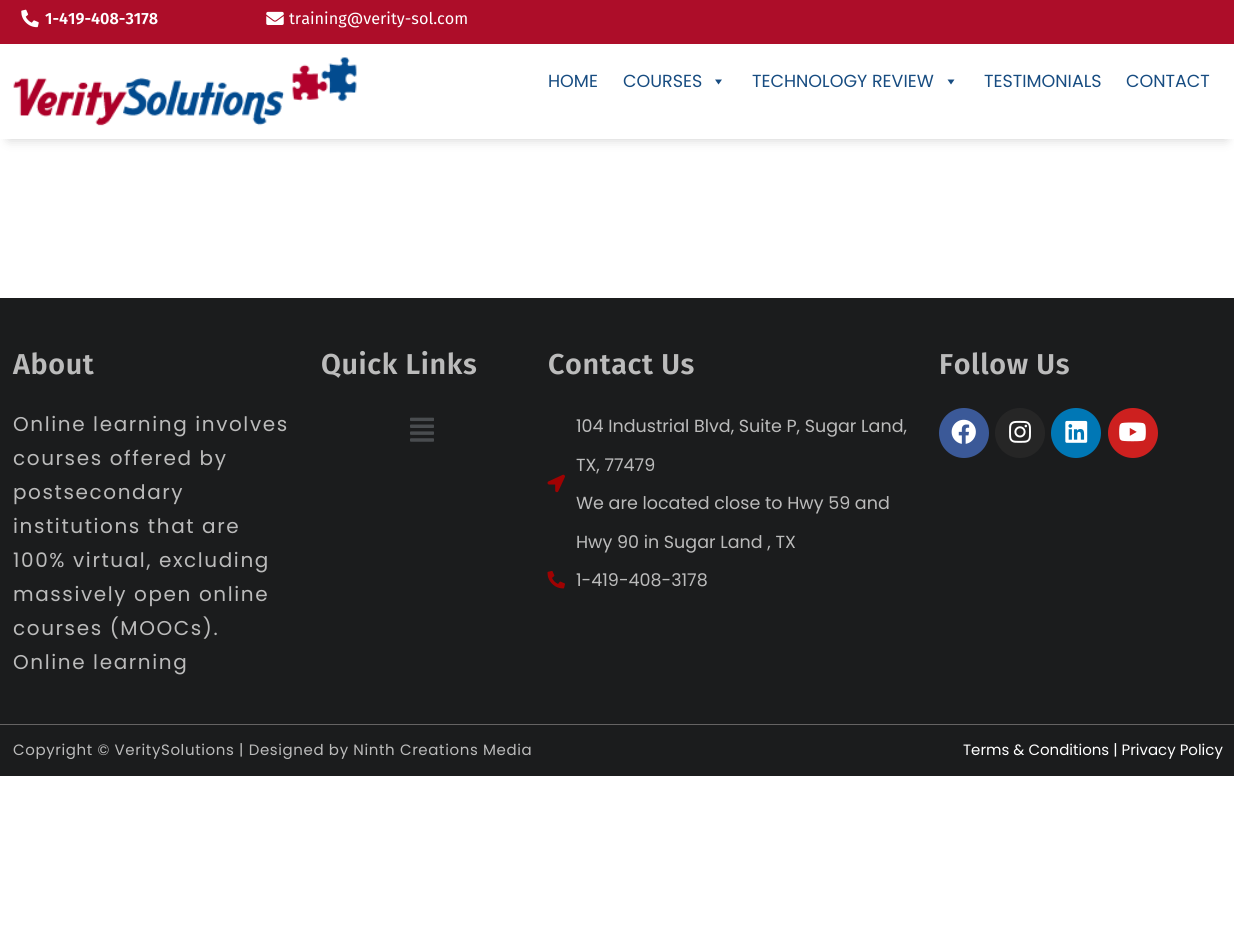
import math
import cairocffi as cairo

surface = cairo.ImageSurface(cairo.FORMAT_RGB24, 1234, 939)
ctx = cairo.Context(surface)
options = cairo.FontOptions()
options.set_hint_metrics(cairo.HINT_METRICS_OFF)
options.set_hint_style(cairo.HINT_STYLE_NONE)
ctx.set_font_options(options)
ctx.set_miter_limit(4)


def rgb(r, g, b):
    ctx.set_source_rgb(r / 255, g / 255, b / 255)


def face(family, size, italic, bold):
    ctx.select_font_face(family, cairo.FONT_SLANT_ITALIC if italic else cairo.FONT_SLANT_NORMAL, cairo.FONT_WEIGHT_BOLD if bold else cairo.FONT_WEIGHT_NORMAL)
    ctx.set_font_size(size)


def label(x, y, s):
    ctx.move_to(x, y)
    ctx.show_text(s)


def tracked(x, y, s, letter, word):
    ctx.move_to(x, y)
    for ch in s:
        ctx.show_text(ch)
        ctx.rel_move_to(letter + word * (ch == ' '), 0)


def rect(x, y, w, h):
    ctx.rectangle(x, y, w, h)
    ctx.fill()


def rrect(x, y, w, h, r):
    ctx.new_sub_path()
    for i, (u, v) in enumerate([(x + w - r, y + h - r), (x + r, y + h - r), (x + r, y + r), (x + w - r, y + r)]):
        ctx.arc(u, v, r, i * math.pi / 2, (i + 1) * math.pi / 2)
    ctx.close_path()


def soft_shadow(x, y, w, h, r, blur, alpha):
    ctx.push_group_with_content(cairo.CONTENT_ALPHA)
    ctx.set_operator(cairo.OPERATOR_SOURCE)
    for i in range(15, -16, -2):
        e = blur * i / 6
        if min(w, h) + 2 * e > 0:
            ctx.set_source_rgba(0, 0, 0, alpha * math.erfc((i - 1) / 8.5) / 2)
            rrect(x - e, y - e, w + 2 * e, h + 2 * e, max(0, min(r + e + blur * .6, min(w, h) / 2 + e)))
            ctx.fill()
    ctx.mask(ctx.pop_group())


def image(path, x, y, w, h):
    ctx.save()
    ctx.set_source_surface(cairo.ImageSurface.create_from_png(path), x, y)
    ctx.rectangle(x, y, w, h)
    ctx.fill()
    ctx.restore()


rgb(255, 255, 255)
ctx.paint()
rgb(173, 13, 41)
rect(0, 0, 1234, 39)
image('image0.png', 21, 9, 18, 19)
face('Fira Sans SemiBold', 16.25, 0, 0)
rgb(255, 255, 255)
label(45, 24, '1-419-408-3178')
image('image1.png', 266, 11, 18, 14)
face('Fira Sans', 16.25, 0, 0)
label(289, 24, 'training@verity-sol.com')
rgb(0, 0, 0)
soft_shadow(9, 56, 1217, 83, 0, 6, 0.2)
rgb(255, 255, 255)
rect(0, 46, 1234, 93)
rgb(173, 13, 41)
rect(0, 39, 1234, 5)
image('image2.png', 13, 57, 344, 69)
face('Poppins', 17.5, 0, 0)
rgb(23, 76, 129)
label(548, 87, 'HOME')
label(623, 87, 'COURSES')
ctx.new_path()
ctx.move_to(722, 79.5)
ctx.line_to(718.5, 84.5)
ctx.line_to(715, 79.5)
ctx.close_path()
ctx.fill()
label(752, 87, 'TECHNOLOGY REVIEW')
ctx.new_path()
ctx.move_to(954.5, 79.5)
ctx.line_to(951, 84.5)
ctx.line_to(947.5, 79.5)
ctx.close_path()
ctx.fill()
label(984, 87, 'TESTIMONIALS')
label(1126, 87, 'CONTACT')
rgb(27, 28, 29)
rect(0, 298, 1234, 426)
face('Fira Sans SemiBold', 28.75, 0, 0)
rgb(187, 187, 187)
tracked(13, 374, 'About', 0.62, 0)
face('Poppins', 20, 0, 0)
tracked(13, 431, 'Online learning involves', 1.6, 0)
tracked(13, 465, 'courses offered by', 1.6, 0)
tracked(13, 499, 'postsecondary', 1.6, 0)
tracked(13, 533, 'institutions that are', 1.6, 0)
tracked(13, 567, '100% virtual, excluding', 1.6, 0)
tracked(13, 601, 'massively open online', 1.6, 0)
tracked(13, 635, 'courses (MOOCs).', 1.6, 0)
tracked(13, 669, 'Online learning', 1.6, 0)
face('Fira Sans SemiBold', 28.75, 0, 0)
tracked(321, 374, 'Quick Links', 0.62, 0)
image('image3.png', 410, 417, 24, 25)
tracked(548, 374, 'Contact Us', 0.62, 0)
image('image4.png', 547, 474, 18, 19)
face('Poppins', 17.5, 0, 0)
label(576, 432, '104 Industrial Blvd, Suite P, Sugar Land,')
label(576, 471, 'TX, 77479')
label(576, 509, 'We are located close to Hwy 59 and')
label(576, 548, 'Hwy 90 in Sugar Land , TX')
image('image5.png', 547, 571, 18, 18)
label(576, 586, '1-419-408-3178')
face('Fira Sans SemiBold', 28.75, 0, 0)
tracked(939, 374, 'Follow Us', 0.62, 0)
rgb(59, 89, 152)
ctx.new_path()
ctx.arc(964, 433, 25, 0, 2 * math.pi)
ctx.fill()
image('image6.png', 951, 419, 25, 25)
rgb(38, 38, 38)
ctx.arc(1020, 433, 25, 0, 2 * math.pi)
ctx.fill()
image('image7.png', 1009, 420, 22, 23)
rgb(0, 119, 181)
ctx.arc(1076, 433, 25, 0, 2 * math.pi)
ctx.fill()
image('image8.png', 1065, 420, 23, 23)
rgb(205, 32, 31)
ctx.arc(1133, 433, 25, 0, 2 * math.pi)
ctx.fill()
image('image9.png', 1119, 422, 27, 20)
rgb(27, 28, 29)
rect(0, 725, 1234, 51)
rgb(101, 99, 99)
rect(0, 724, 1234, 1)
face('Poppins', 15, 0, 0)
rgb(187, 187, 187)
tracked(13, 755, 'Copyright © VeritySolutions | Designed by Ninth Creations Media', 0.62, 0)
rgb(255, 255, 255)
label(963, 755, 'Terms & Conditions | Privacy Policy')
surface.write_to_png('render.png')
